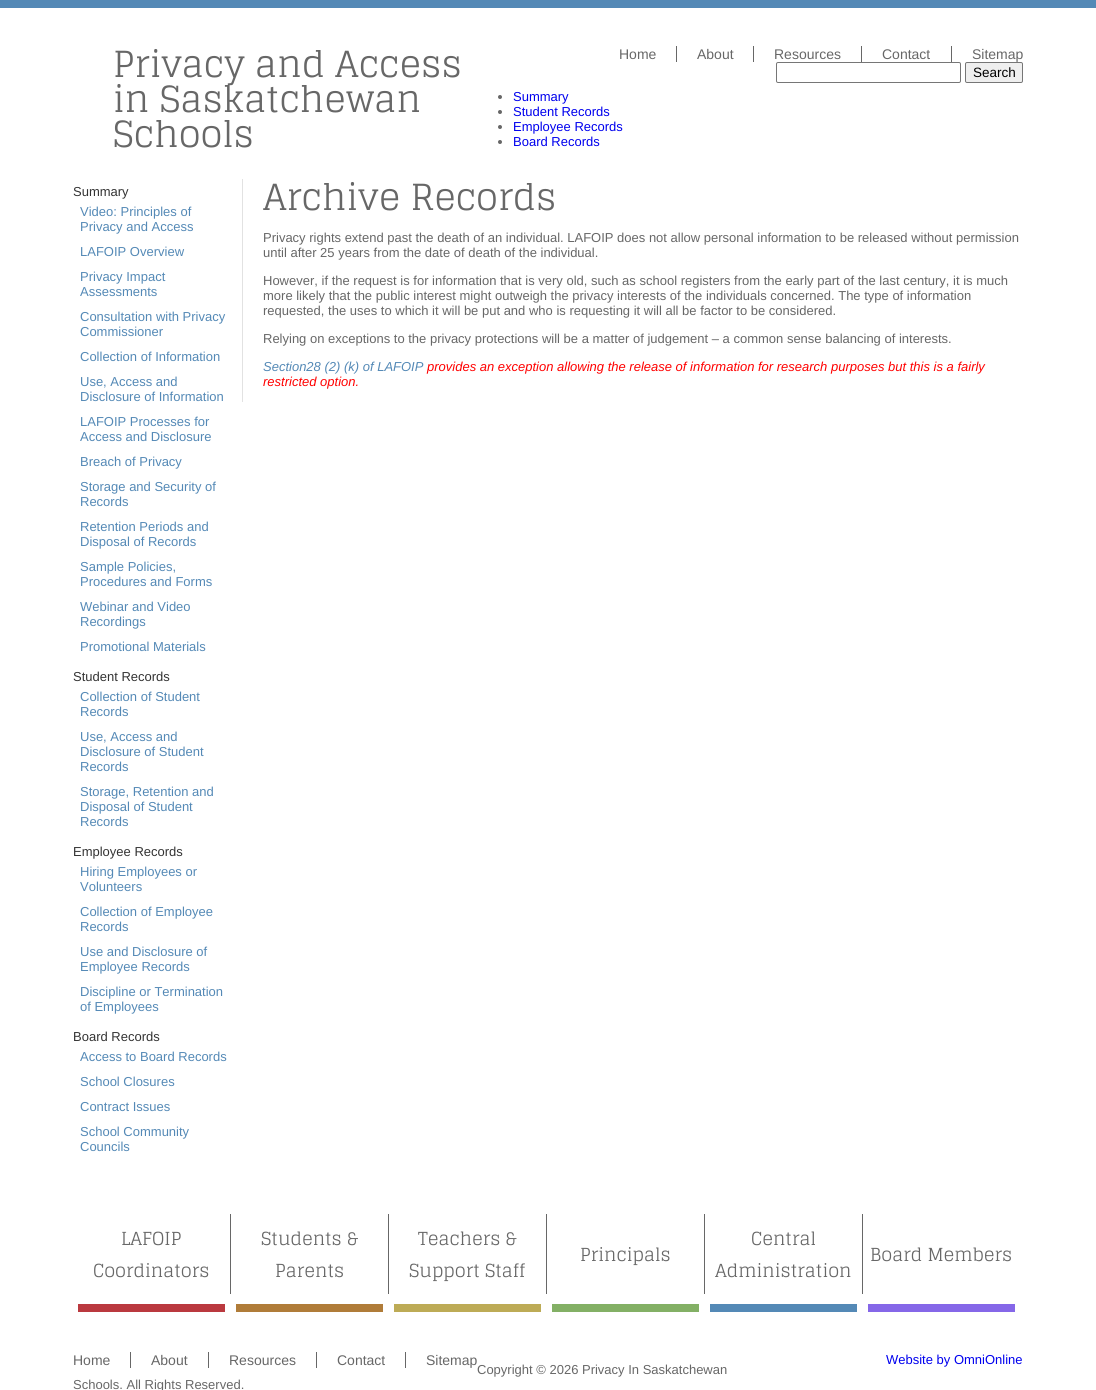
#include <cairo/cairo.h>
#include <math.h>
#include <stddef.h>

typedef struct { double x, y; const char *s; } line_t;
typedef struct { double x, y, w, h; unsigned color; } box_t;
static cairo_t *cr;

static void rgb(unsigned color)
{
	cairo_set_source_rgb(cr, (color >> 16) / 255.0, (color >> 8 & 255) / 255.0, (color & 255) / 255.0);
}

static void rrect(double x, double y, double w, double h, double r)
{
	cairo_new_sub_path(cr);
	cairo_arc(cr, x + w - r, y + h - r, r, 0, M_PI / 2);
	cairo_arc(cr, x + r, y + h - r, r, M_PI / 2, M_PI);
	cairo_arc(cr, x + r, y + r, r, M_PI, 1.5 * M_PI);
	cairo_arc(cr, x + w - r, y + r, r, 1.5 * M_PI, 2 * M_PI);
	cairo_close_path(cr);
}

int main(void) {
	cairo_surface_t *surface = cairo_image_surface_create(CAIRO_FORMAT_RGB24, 1096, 1390);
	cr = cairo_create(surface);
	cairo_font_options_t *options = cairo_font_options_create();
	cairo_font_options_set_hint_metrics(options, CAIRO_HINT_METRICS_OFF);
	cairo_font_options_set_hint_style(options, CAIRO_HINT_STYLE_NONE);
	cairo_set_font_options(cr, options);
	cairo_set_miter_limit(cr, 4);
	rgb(0xffffff);
	cairo_paint(cr);
	{
		static const box_t items[] = {
			{0, 0, 1096, 8, 0x5489b6},
			{676, 46, 1, 16, 0x676767},
			{753, 46, 1, 16, 0x676767},
			{861, 46, 1, 16, 0x676767},
			{951, 46, 1, 16, 0x676767},
		};
		for (size_t i = 0; i < sizeof items / sizeof *items; i++) {
			rgb(items[i].color);
			cairo_rectangle(cr, items[i].x, items[i].y, items[i].w, items[i].h);
			cairo_fill(cr);
		}
	}
	rrect(776.5, 62.5, 184, 20, 1.5);
	rgb(0x767676);
	cairo_set_line_width(cr, 1);
	cairo_stroke(cr);
	rgb(0xefefef);
	rrect(965.5, 62.5, 57, 20, 1.5);
	cairo_fill_preserve(cr);
	rgb(0x767676);
	cairo_stroke(cr);
	rgb(0x676767);
	cairo_arc(cr, 500, 97, 2, 0, 2 * M_PI);
	cairo_fill(cr);
	cairo_arc(cr, 500, 112, 2, 0, 2 * M_PI);
	cairo_fill(cr);
	cairo_arc(cr, 500, 127, 2, 0, 2 * M_PI);
	cairo_fill(cr);
	cairo_arc(cr, 500, 142, 2, 0, 2 * M_PI);
	cairo_fill(cr);
	{
		static const box_t items[] = {
			{242, 179, 1, 223, 0xe2e2e2},
			{230, 1214, 1, 80, 0x676767},
			{388, 1214, 1, 80, 0x676767},
			{546, 1214, 1, 80, 0x676767},
			{704, 1214, 1, 80, 0x676767},
			{862, 1214, 1, 80, 0x676767},
			{78, 1304, 147, 8, 0xba393f},
			{236, 1304, 147, 8, 0xb07c39},
			{394, 1304, 147, 8, 0xbdab56},
			{552, 1304, 147, 8, 0x83b065},
			{710, 1304, 147, 8, 0x5489b6},
			{868, 1304, 147, 8, 0x8567e8},
			{130, 1352, 1, 16, 0x676767},
			{208, 1352, 1, 16, 0x676767},
			{316, 1352, 1, 16, 0x676767},
			{405, 1352, 1, 16, 0x676767},
		};
		for (size_t i = 0; i < sizeof items / sizeof *items; i++) {
			rgb(items[i].color);
			cairo_rectangle(cr, items[i].x, items[i].y, items[i].w, items[i].h);
			cairo_fill(cr);
		}
	}
	cairo_select_font_face(cr, "Glegoo", CAIRO_FONT_SLANT_NORMAL, CAIRO_FONT_WEIGHT_NORMAL);
	cairo_set_font_size(cr, 36);
	{
		static const line_t items[] = {
			{113, 77, "Privacy and Access"},
			{113, 112, "in Saskatchewan"},
			{113, 147, "Schools"},
		};
		for (size_t i = 0; i < sizeof items / sizeof *items; i++) {
			cairo_move_to(cr, items[i].x, items[i].y);
			cairo_show_text(cr, items[i].s);
		}
	}
	cairo_select_font_face(cr, "Liberation Sans", CAIRO_FONT_SLANT_NORMAL, CAIRO_FONT_WEIGHT_NORMAL);
	cairo_set_font_size(cr, 14);
	{
		static const line_t items[] = {
			{619, 59, "Home"},
			{697, 59, "About"},
			{774, 59, "Resources"},
			{882, 59, "Contact"},
			{972, 59, "Sitemap"},
		};
		for (size_t i = 0; i < sizeof items / sizeof *items; i++) {
			cairo_move_to(cr, items[i].x, items[i].y);
			cairo_show_text(cr, items[i].s);
		}
	}
	cairo_set_font_size(cr, 13.5);
	rgb(0x000000);
	cairo_move_to(cr, 973, 77);
	cairo_show_text(cr, "Search");
	cairo_set_font_size(cr, 13);
	rgb(0x0000ee);
	{
		static const line_t items[] = {
			{513, 101, "Summary"},
			{513, 116, "Student Records"},
			{513, 131, "Employee Records"},
			{513, 146, "Board Records"},
		};
		for (size_t i = 0; i < sizeof items / sizeof *items; i++) {
			cairo_move_to(cr, items[i].x, items[i].y);
			cairo_show_text(cr, items[i].s);
		}
	}
	rgb(0x333333);
	cairo_move_to(cr, 73, 196);
	cairo_show_text(cr, "Summary");
	rgb(0x5489b6);
	{
		static const line_t items[] = {
			{80, 216, "Video: Principles of"},
			{80, 231, "Privacy and Access"},
			{80, 256, "LAFOIP Overview"},
			{80, 281, "Privacy Impact"},
			{80, 296, "Assessments"},
			{80, 321, "Consultation with Privacy"},
			{80, 336, "Commissioner"},
			{80, 361, "Collection of Information"},
			{80, 386, "Use, Access and"},
			{80, 401, "Disclosure of Information"},
			{80, 426, "LAFOIP Processes for"},
			{80, 441, "Access and Disclosure"},
			{80, 466, "Breach of Privacy"},
			{80, 491, "Storage and Security of"},
			{80, 506, "Records"},
			{80, 531, "Retention Periods and"},
			{80, 546, "Disposal of Records"},
			{80, 571, "Sample Policies,"},
			{80, 586, "Procedures and Forms"},
			{80, 611, "Webinar and Video"},
			{80, 626, "Recordings"},
			{80, 651, "Promotional Materials"},
		};
		for (size_t i = 0; i < sizeof items / sizeof *items; i++) {
			cairo_move_to(cr, items[i].x, items[i].y);
			cairo_show_text(cr, items[i].s);
		}
	}
	rgb(0x333333);
	cairo_move_to(cr, 73, 681);
	cairo_show_text(cr, "Student Records");
	rgb(0x5489b6);
	{
		static const line_t items[] = {
			{80, 701, "Collection of Student"},
			{80, 716, "Records"},
			{80, 741, "Use, Access and"},
			{80, 756, "Disclosure of Student"},
			{80, 771, "Records"},
			{80, 796, "Storage, Retention and"},
			{80, 811, "Disposal of Student"},
			{80, 826, "Records"},
		};
		for (size_t i = 0; i < sizeof items / sizeof *items; i++) {
			cairo_move_to(cr, items[i].x, items[i].y);
			cairo_show_text(cr, items[i].s);
		}
	}
	rgb(0x333333);
	cairo_move_to(cr, 73, 856);
	cairo_show_text(cr, "Employee Records");
	rgb(0x5489b6);
	{
		static const line_t items[] = {
			{80, 876, "Hiring Employees or"},
			{80, 891, "Volunteers"},
			{80, 916, "Collection of Employee"},
			{80, 931, "Records"},
			{80, 956, "Use and Disclosure of"},
			{80, 971, "Employee Records"},
			{80, 996, "Discipline or Termination"},
			{80, 1011, "of Employees"},
		};
		for (size_t i = 0; i < sizeof items / sizeof *items; i++) {
			cairo_move_to(cr, items[i].x, items[i].y);
			cairo_show_text(cr, items[i].s);
		}
	}
	rgb(0x333333);
	cairo_move_to(cr, 73, 1041);
	cairo_show_text(cr, "Board Records");
	rgb(0x5489b6);
	{
		static const line_t items[] = {
			{80, 1061, "Access to Board Records"},
			{80, 1086, "School Closures"},
			{80, 1111, "Contract Issues"},
			{80, 1136, "School Community"},
			{80, 1151, "Councils"},
		};
		for (size_t i = 0; i < sizeof items / sizeof *items; i++) {
			cairo_move_to(cr, items[i].x, items[i].y);
			cairo_show_text(cr, items[i].s);
		}
	}
	cairo_select_font_face(cr, "Glegoo", CAIRO_FONT_SLANT_NORMAL, CAIRO_FONT_WEIGHT_NORMAL);
	cairo_set_font_size(cr, 36);
	rgb(0x676767);
	cairo_move_to(cr, 263, 210);
	cairo_show_text(cr, "Archive Records");
	cairo_select_font_face(cr, "Liberation Sans", CAIRO_FONT_SLANT_NORMAL, CAIRO_FONT_WEIGHT_NORMAL);
	cairo_set_font_size(cr, 13);
	{
		static const line_t items[] = {
			{263, 242, "Privacy rights extend past the death of an individual. LAFOIP does not allow personal information to be released without permission"},
			{263, 257, "until after 25 years from the date of death of the individual."},
			{263, 285, "However, if the request is for information that is very old, such as school registers from the early part of the last century, it is much"},
			{263, 300, "more likely that the public interest might outweigh the privacy interests of the individuals concerned. The type of information"},
			{263, 315, "requested, the uses to which it will be put and who is requesting it will all be factor to be considered."},
			{263, 343, "Relying on exceptions to the privacy protections will be a matter of judgement – a common sense balancing of interests."},
		};
		for (size_t i = 0; i < sizeof items / sizeof *items; i++) {
			cairo_move_to(cr, items[i].x, items[i].y);
			cairo_show_text(cr, items[i].s);
		}
	}
	cairo_select_font_face(cr, "Liberation Sans", CAIRO_FONT_SLANT_ITALIC, CAIRO_FONT_WEIGHT_NORMAL);
	rgb(0x5489b6);
	cairo_move_to(cr, 263, 371);
	cairo_show_text(cr, "Section28 (2) (k) of LAFOIP");
	rgb(0xff0000);
	cairo_move_to(cr, 427, 371);
	cairo_show_text(cr, "provides an exception allowing the release of information for research purposes but this is a fairly");
	cairo_move_to(cr, 263, 386);
	cairo_show_text(cr, "restricted option.");
	cairo_select_font_face(cr, "Glegoo", CAIRO_FONT_SLANT_NORMAL, CAIRO_FONT_WEIGHT_NORMAL);
	cairo_set_font_size(cr, 18);
	rgb(0x676767);
	{
		static const line_t items[] = {
			{121, 1245, "LAFOIP"},
			{93, 1277, "Coordinators"},
			{261, 1245, "Students &"},
			{275, 1277, "Parents"},
			{418, 1245, "Teachers &"},
			{409, 1277, "Support Staff"},
			{580, 1261, "Principals"},
			{751, 1245, "Central"},
			{715, 1277, "Administration"},
			{870, 1261, "Board Members"},
		};
		for (size_t i = 0; i < sizeof items / sizeof *items; i++) {
			cairo_move_to(cr, items[i].x, items[i].y);
			cairo_show_text(cr, items[i].s);
		}
	}
	cairo_select_font_face(cr, "Liberation Sans", CAIRO_FONT_SLANT_NORMAL, CAIRO_FONT_WEIGHT_NORMAL);
	cairo_set_font_size(cr, 14);
	{
		static const line_t items[] = {
			{73, 1365, "Home"},
			{151, 1365, "About"},
			{229, 1365, "Resources"},
			{337, 1365, "Contact"},
			{426, 1365, "Sitemap"},
		};
		for (size_t i = 0; i < sizeof items / sizeof *items; i++) {
			cairo_move_to(cr, items[i].x, items[i].y);
			cairo_show_text(cr, items[i].s);
		}
	}
	cairo_set_font_size(cr, 13);
	cairo_move_to(cr, 477, 1374);
	cairo_show_text(cr, "Copyright © 2026 Privacy In Saskatchewan");
	cairo_move_to(cr, 73, 1389);
	cairo_show_text(cr, "Schools. All Rights Reserved.");
	rgb(0x0000ee);
	cairo_move_to(cr, 886, 1364);
	cairo_show_text(cr, "Website by OmniOnline");
	cairo_surface_write_to_png(surface, "page.png");
	cairo_font_options_destroy(options);
	cairo_destroy(cr);
	cairo_surface_destroy(surface);
	return 0;
}
